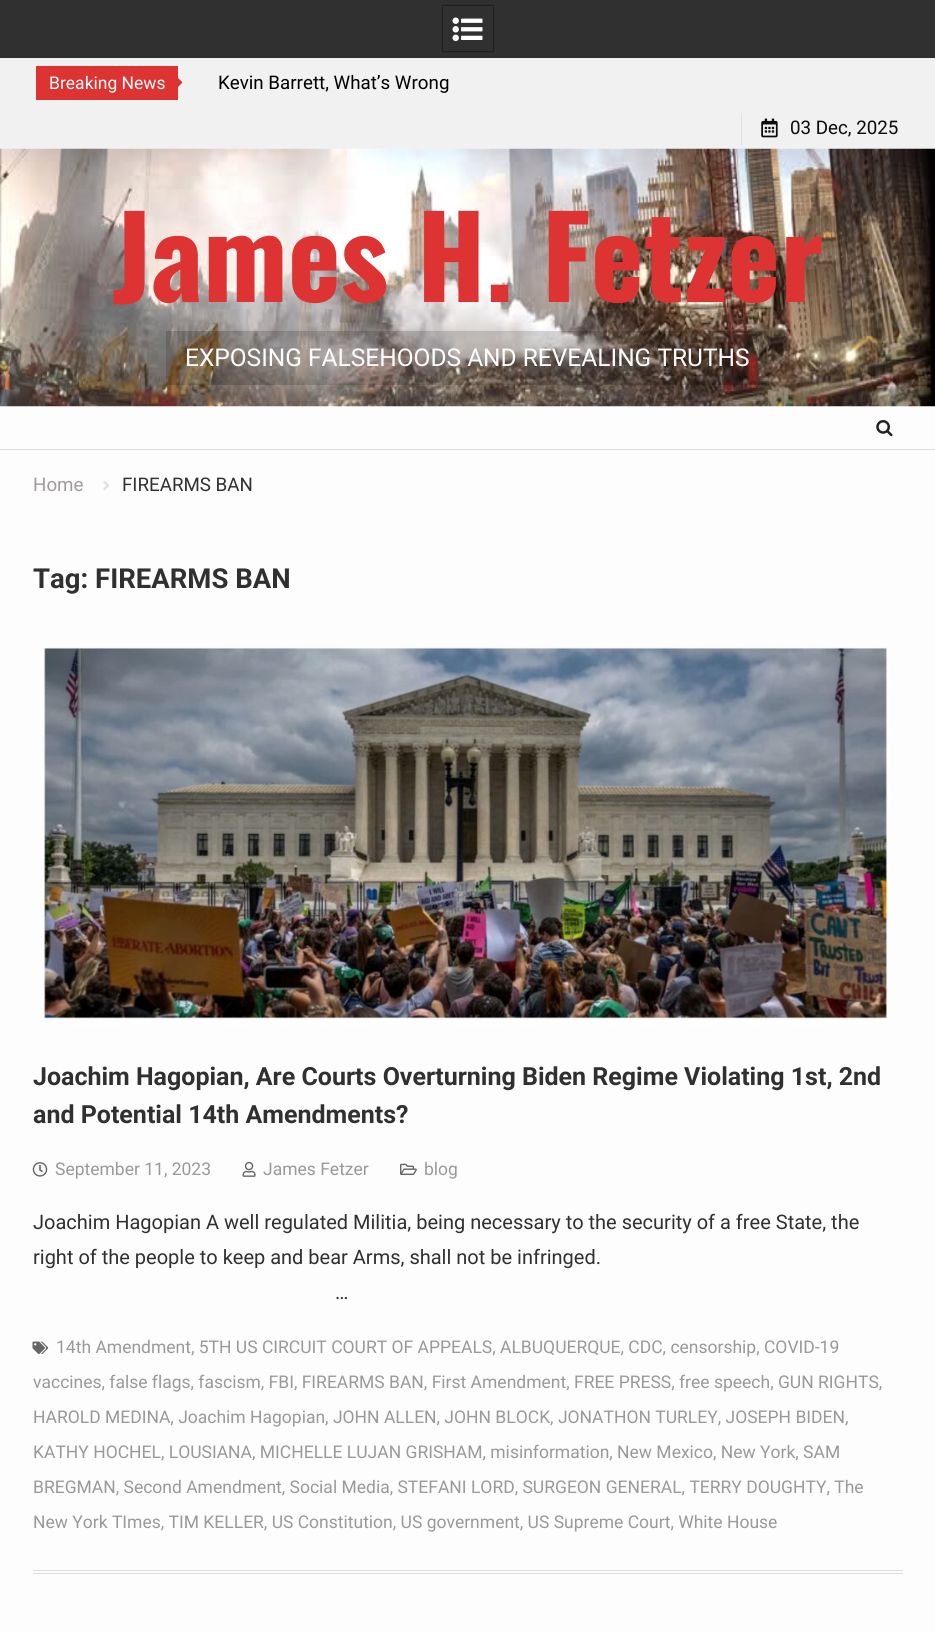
#include <cairo/cairo.h>
#include <math.h>
#include <stddef.h>

typedef struct { double x, y; const char *s; } line_t;
static cairo_t *cr;

static void rgb(unsigned color)
{
	cairo_set_source_rgb(cr, (color >> 16) / 255.0, (color >> 8 & 255) / 255.0, (color & 255) / 255.0);
}

static void rrect(double x, double y, double w, double h, double r)
{
	cairo_new_sub_path(cr);
	cairo_arc(cr, x + w - r, y + h - r, r, 0, M_PI / 2);
	cairo_arc(cr, x + r, y + h - r, r, M_PI / 2, M_PI);
	cairo_arc(cr, x + r, y + r, r, M_PI, 1.5 * M_PI);
	cairo_arc(cr, x + w - r, y + r, r, 1.5 * M_PI, 2 * M_PI);
	cairo_close_path(cr);
}

static void soft_shadow(double x, double y, double w, double h, double r, double blur, double alpha)
{
	cairo_push_group_with_content(cr, CAIRO_CONTENT_ALPHA);
	cairo_set_operator(cr, CAIRO_OPERATOR_SOURCE);
	for (int i = 15; i >= -15 && fmin(w, h) + blur * i / 3 > 0; i -= 2) {
		double e = blur * i / 6;
		cairo_set_source_rgba(cr, 0, 0, 0, alpha * erfc((i - 1) / 8.5) / 2);
		rrect(x - e, y - e, w + 2 * e, h + 2 * e, fmax(0, fmin(r + e + blur * .6, fmin(w, h) / 2 + e)));
		cairo_fill(cr);
	}
	cairo_pattern_t *soft = cairo_pop_group(cr);
	cairo_mask(cr, soft);
	cairo_pattern_destroy(soft);
}

static void image(const char *path, double x, double y, double w, double h)
{
	cairo_surface_t *image = cairo_image_surface_create_from_png(path);
	cairo_save(cr);
	cairo_set_source_surface(cr, image, x, y);
	cairo_rectangle(cr, x, y, w, h);
	cairo_fill(cr);
	cairo_restore(cr);
	cairo_surface_destroy(image);
}

int main(void) {
	cairo_surface_t *surface = cairo_image_surface_create(CAIRO_FORMAT_RGB24, 935, 1632);
	cr = cairo_create(surface);
	cairo_font_options_t *options = cairo_font_options_create();
	cairo_font_options_set_hint_metrics(options, CAIRO_HINT_METRICS_OFF);
	cairo_font_options_set_hint_style(options, CAIRO_HINT_STYLE_NONE);
	cairo_set_font_options(cr, options);
	cairo_set_miter_limit(cr, 4);
	rgb(0xfdfdfd);
	cairo_paint(cr);
	rgb(0xf1f1f1);
	cairo_rectangle(cr, 0, 58, 935, 91);
	cairo_fill(cr);
	rgb(0xdd3333);
	cairo_rectangle(cr, 36, 66, 142, 34);
	cairo_fill(cr);
	cairo_new_path(cr);
	cairo_move_to(cr, 170, 95);
	cairo_line_to(cr, 170, 70);
	cairo_line_to(cr, 182.5, 82.5);
	cairo_close_path(cr);
	cairo_fill(cr);
	rgb(0xe0e0e0);
	cairo_rectangle(cr, 741, 113, 1, 32);
	cairo_fill(cr);
	image("img/1.png", 761, 118, 17, 20);
	rgb(0x303030);
	cairo_rectangle(cr, 0, 0, 935, 58);
	cairo_fill(cr);
	cairo_save(cr);
	cairo_set_fill_rule(cr, CAIRO_FILL_RULE_EVEN_ODD);
	cairo_new_path(cr);
	cairo_move_to(cr, 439, 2);
	cairo_line_to(cr, 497, 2);
	cairo_line_to(cr, 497, 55);
	cairo_line_to(cr, 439, 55);
	cairo_close_path(cr);
	cairo_move_to(cr, 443, 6);
	cairo_line_to(cr, 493, 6);
	cairo_line_to(cr, 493, 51);
	cairo_line_to(cr, 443, 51);
	cairo_close_path(cr);
	cairo_clip(cr);
	rgb(0x000000);
	soft_shadow(443, 6, 50, 45, 0, 1, 1);
	cairo_restore(cr);
	image("img/2.png", 452, 17, 31, 25);
	image("img/3.png", 0, 148, 935, 259);
	rgb(0xdddddd);
	cairo_rectangle(cr, 0, 449, 935, 1);
	cairo_fill(cr);
	image("img/4.png", 876, 420, 17, 17);
	image("img/5.png", 103, 481, 7, 10);
	cairo_rectangle(cr, 33, 1570, 870, 1);
	cairo_fill(cr);
	cairo_rectangle(cr, 33, 1573, 870, 1);
	cairo_fill(cr);
	image("img/6.png", 40, 647, 849, 378);
	image("img/7.png", 32, 1162, 16, 15);
	image("img/8.png", 242, 1161, 14, 16);
	image("img/9.png", 400, 1163, 17, 12);
	image("img/10.png", 32, 1341, 17, 13);
	cairo_select_font_face(cr, "Roboto", CAIRO_FONT_SLANT_NORMAL, CAIRO_FONT_WEIGHT_NORMAL);
	cairo_set_font_size(cr, 17.5);
	rgb(0xfdfdfd);
	cairo_move_to(cr, 49, 89);
	cairo_show_text(cr, "Breaking News");
	cairo_set_font_size(cr, 18.75);
	rgb(0x000000);
	cairo_move_to(cr, 218, 89);
	cairo_show_text(cr, "Kevin Barrett, What’s Wrong");
	rgb(0x0a0a0a);
	cairo_move_to(cr, 790, 134);
	cairo_show_text(cr, "03 Dec, 2025");
	cairo_select_font_face(cr, "Oswald", CAIRO_FONT_SLANT_NORMAL, CAIRO_FONT_WEIGHT_BOLD);
	cairo_set_font_size(cr, 112.5);
	rgb(0xdd3333);
	cairo_move_to(cr, 112, 302);
	cairo_show_text(cr, "James H. Fetzer");
	cairo_select_font_face(cr, "Roboto", CAIRO_FONT_SLANT_NORMAL, CAIRO_FONT_WEIGHT_NORMAL);
	cairo_set_font_size(cr, 24.5);
	rgb(0xfdfdfd);
	cairo_move_to(cr, 185, 366);
	cairo_show_text(cr, "EXPOSING FALSEHOODS AND REVEALING TRUTHS");
	cairo_set_font_size(cr, 18.75);
	rgb(0xa29a9a);
	cairo_move_to(cr, 33, 491);
	cairo_show_text(cr, "Home");
	rgb(0x303030);
	cairo_move_to(cr, 122, 491);
	cairo_show_text(cr, "FIREARMS BAN");
	cairo_select_font_face(cr, "Roboto", CAIRO_FONT_SLANT_NORMAL, CAIRO_FONT_WEIGHT_BOLD);
	cairo_set_font_size(cr, 27.5);
	cairo_move_to(cr, 33, 588);
	cairo_show_text(cr, "Tag: FIREARMS BAN");
	cairo_set_font_size(cr, 25);
	cairo_move_to(cr, 33, 1085);
	cairo_show_text(cr, "Joachim Hagopian, Are Courts Overturning Biden Regime Violating 1st, 2nd");
	cairo_move_to(cr, 33, 1123);
	cairo_show_text(cr, "and Potential 14th Amendments?");
	cairo_select_font_face(cr, "Roboto", CAIRO_FONT_SLANT_NORMAL, CAIRO_FONT_WEIGHT_NORMAL);
	cairo_set_font_size(cr, 17.5);
	rgb(0x999999);
	{
		static const line_t items[] = {
			{55, 1175, "September 11, 2023"},
			{263, 1175, "James Fetzer"},
			{424, 1175, "blog"},
		};
		for (size_t i = 0; i < sizeof items / sizeof *items; i++) {
			cairo_move_to(cr, items[i].x, items[i].y);
			cairo_show_text(cr, items[i].s);
		}
	}
	cairo_set_font_size(cr, 20);
	rgb(0x303030);
	{
		static const line_t items[] = {
			{33, 1229, "Joachim Hagopian A well regulated Militia, being necessary to the security of a free State, the"},
			{33, 1264, "right of the people to keep and bear Arms, shall not be infringed."},
			{335, 1299, "…"},
		};
		for (size_t i = 0; i < sizeof items / sizeof *items; i++) {
			cairo_move_to(cr, items[i].x, items[i].y);
			cairo_show_text(cr, items[i].s);
		}
	}
	cairo_set_font_size(cr, 17.5);
	rgb(0x999999);
	{
		static const line_t items[] = {
			{56, 1353, "14th Amendment, 5TH US CIRCUIT COURT OF APPEALS, ALBUQUERQUE, CDC, censorship, COVID-19"},
			{33, 1388, "vaccines, false flags, fascism, FBI, FIREARMS BAN, First Amendment, FREE PRESS, free speech, GUN RIGHTS,"},
			{33, 1423, "HAROLD MEDINA, Joachim Hagopian, JOHN ALLEN, JOHN BLOCK, JONATHON TURLEY, JOSEPH BIDEN,"},
			{33, 1458, "KATHY HOCHEL, LOUSIANA, MICHELLE LUJAN GRISHAM, misinformation, New Mexico, New York, SAM"},
			{33, 1493, "BREGMAN, Second Amendment, Social Media, STEFANI LORD, SURGEON GENERAL, TERRY DOUGHTY, The"},
			{33, 1528, "New York TImes, TIM KELLER, US Constitution, US government, US Supreme Court, White House"},
		};
		for (size_t i = 0; i < sizeof items / sizeof *items; i++) {
			cairo_move_to(cr, items[i].x, items[i].y);
			cairo_show_text(cr, items[i].s);
		}
	}
	cairo_surface_write_to_png(surface, "page.png");
	cairo_font_options_destroy(options);
	cairo_destroy(cr);
	cairo_surface_destroy(surface);
	return 0;
}
